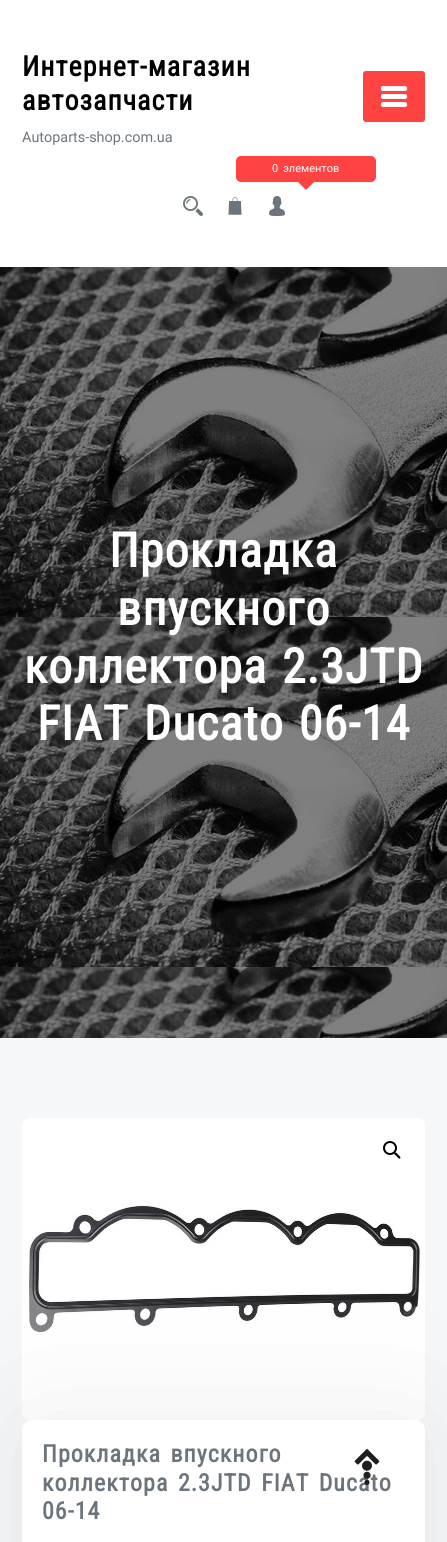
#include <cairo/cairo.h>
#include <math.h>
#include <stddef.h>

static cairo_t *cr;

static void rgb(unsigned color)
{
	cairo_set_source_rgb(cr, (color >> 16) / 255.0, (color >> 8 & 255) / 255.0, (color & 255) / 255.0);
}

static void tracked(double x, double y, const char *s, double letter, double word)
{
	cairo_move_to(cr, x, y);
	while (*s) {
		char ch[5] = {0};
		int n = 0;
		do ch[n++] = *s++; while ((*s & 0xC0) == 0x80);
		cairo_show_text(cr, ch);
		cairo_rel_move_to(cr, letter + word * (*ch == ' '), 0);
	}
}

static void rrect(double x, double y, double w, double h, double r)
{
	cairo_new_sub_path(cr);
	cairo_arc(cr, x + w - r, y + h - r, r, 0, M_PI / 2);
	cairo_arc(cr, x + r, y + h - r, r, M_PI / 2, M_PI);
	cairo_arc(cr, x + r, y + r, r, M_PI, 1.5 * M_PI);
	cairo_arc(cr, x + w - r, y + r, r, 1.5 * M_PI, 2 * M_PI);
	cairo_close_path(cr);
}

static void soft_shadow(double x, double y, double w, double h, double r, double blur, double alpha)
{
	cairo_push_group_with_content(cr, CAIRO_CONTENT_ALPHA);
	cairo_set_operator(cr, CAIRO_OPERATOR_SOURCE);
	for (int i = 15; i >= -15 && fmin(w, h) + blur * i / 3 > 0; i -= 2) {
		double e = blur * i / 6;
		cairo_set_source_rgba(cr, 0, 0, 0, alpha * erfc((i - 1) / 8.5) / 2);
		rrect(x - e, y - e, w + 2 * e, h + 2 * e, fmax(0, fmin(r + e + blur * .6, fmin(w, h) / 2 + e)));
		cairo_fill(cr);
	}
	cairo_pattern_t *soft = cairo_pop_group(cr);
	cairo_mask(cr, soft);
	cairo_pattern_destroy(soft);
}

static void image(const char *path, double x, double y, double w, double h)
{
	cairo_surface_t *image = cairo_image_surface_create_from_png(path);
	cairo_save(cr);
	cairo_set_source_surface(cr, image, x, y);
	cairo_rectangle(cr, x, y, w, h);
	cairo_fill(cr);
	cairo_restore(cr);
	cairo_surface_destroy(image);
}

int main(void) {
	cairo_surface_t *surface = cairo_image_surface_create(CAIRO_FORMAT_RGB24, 447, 1542);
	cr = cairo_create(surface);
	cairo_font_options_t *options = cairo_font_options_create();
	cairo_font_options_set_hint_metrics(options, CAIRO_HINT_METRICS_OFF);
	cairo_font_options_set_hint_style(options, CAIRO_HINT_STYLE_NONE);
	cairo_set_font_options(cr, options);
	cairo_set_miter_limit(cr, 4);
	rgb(0xf6f7f9);
	cairo_paint(cr);
	rgb(0xffffff);
	cairo_rectangle(cr, 0, 0, 447, 267);
	cairo_fill(cr);
	rgb(0xff4343);
	rrect(363.5, 71.5, 61, 50, 2.5);
	cairo_fill_preserve(cr);
	cairo_set_line_width(cr, 1);
	cairo_stroke(cr);
	image("img/1.png", 380, 86, 28, 21);
	rrect(236, 156, 140, 26, 5);
	cairo_fill(cr);
	cairo_new_path(cr);
	cairo_move_to(cr, 298, 182);
	cairo_line_to(cr, 314, 182);
	cairo_line_to(cr, 306, 190);
	cairo_close_path(cr);
	cairo_fill(cr);
	image("img/2.png", 228, 197, 14, 18);
	image("img/3.png", 183, 196, 20, 20);
	image("img/4.png", 269, 196, 16, 20);
	image("img/5.png", 0, 267, 447, 771);
	image("img/6.png", 22, 1118, 403, 302);
	cairo_arc(cr, 390, 1148, 6, 0, 2 * M_PI);
	rgb(0x000000);
	cairo_set_line_width(cr, 2);
	cairo_stroke(cr);
	cairo_new_path(cr);
	cairo_move_to(cr, 394.5, 1152.5);
	cairo_curve_to(cr, 395.5, 1151.5, 397.5, 1154, 398, 1154.5);
	cairo_curve_to(cr, 398.5, 1155.5, 401.5, 1157, 400, 1158.5);
	cairo_curve_to(cr, 399, 1159.5, 397, 1156.5, 396.5, 1156);
	cairo_curve_to(cr, 396, 1155.5, 393, 1154, 394.5, 1152.5);
	cairo_close_path(cr);
	cairo_fill(cr);
	rgb(0x4a4a4a);
	soft_shadow(22, 1420, 403, 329, 10, 65.5, 0.1);
	rgb(0xffffff);
	rrect(22, 1420, 403, 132, 10);
	cairo_fill(cr);
	cairo_select_font_face(cr, "Roboto Condensed", CAIRO_FONT_SLANT_NORMAL, CAIRO_FONT_WEIGHT_BOLD);
	cairo_set_font_size(cr, 28);
	rgb(0x000000);
	tracked(22, 76, "Интернет-магазин", 1, 0);
	tracked(22, 110, "автозапчасти", 1, 0);
	cairo_select_font_face(cr, "Roboto", CAIRO_FONT_SLANT_NORMAL, CAIRO_FONT_WEIGHT_NORMAL);
	cairo_set_font_size(cr, 14.4);
	rgb(0x6c757d);
	cairo_move_to(cr, 22, 142);
	cairo_show_text(cr, "Autoparts-shop.com.ua");
	cairo_set_font_size(cr, 11);
	rgb(0xffffff);
	tracked(272, 172, "0 элементов", 0, 2);
	cairo_select_font_face(cr, "Roboto Condensed", CAIRO_FONT_SLANT_NORMAL, CAIRO_FONT_WEIGHT_BOLD);
	cairo_set_font_size(cr, 48);
	tracked(109, 567, "Прокладка", 1, 0);
	tracked(117, 625, "впускного", 1, 0);
	tracked(24, 683, "коллектора 2.3JTD", 1, 3);
	tracked(37, 740, "FIAT Ducato 06-14", 1, 3);
	cairo_set_font_size(cr, 24);
	rgb(0x6c757d);
	tracked(42, 1462, "Прокладка впускного", 1, 3);
	tracked(42, 1491, "коллектора 2.3JTD FIAT Ducato", 1, 3);
	tracked(42, 1519, "06-14", 1, 0);
	image("img/7.png", 354, 1449, 26, 36);
	cairo_surface_write_to_png(surface, "page.png");
	cairo_font_options_destroy(options);
	cairo_destroy(cr);
	cairo_surface_destroy(surface);
	return 0;
}
